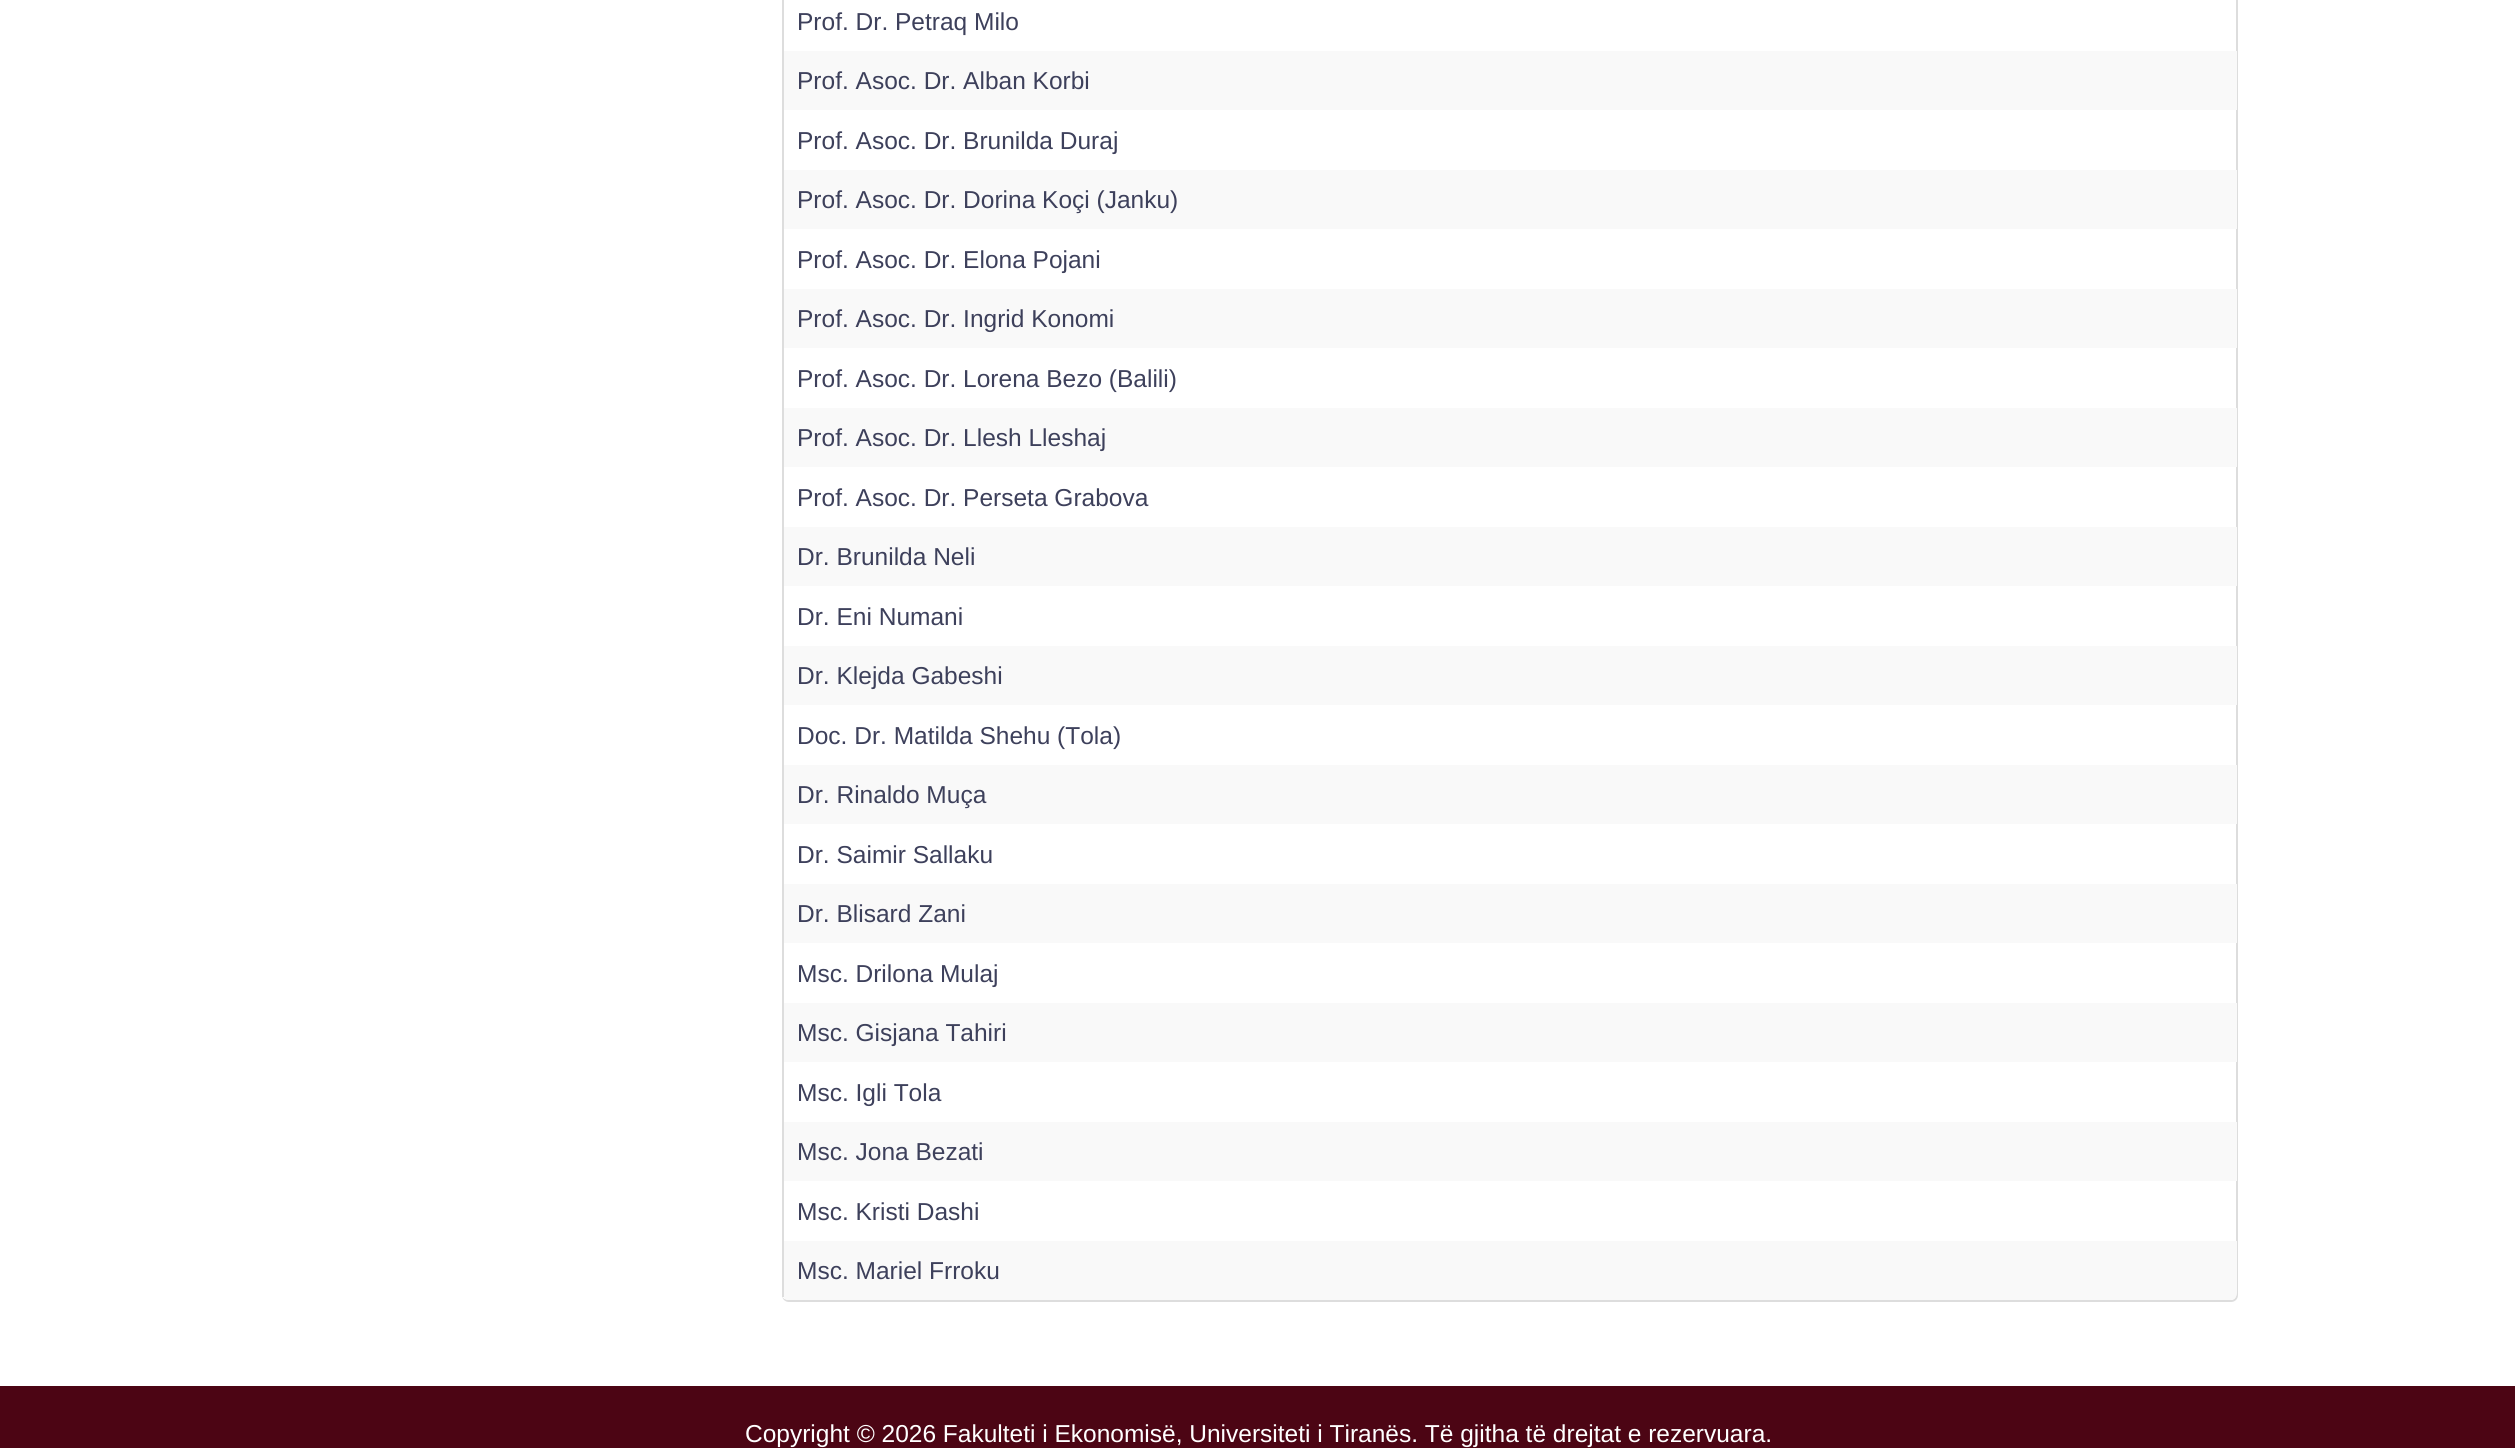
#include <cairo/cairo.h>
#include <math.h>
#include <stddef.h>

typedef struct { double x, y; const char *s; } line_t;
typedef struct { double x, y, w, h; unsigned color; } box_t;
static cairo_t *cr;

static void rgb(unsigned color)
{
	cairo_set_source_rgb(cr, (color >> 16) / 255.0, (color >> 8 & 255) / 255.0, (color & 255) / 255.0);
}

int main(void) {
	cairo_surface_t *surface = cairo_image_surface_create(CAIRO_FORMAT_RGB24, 2515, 1448);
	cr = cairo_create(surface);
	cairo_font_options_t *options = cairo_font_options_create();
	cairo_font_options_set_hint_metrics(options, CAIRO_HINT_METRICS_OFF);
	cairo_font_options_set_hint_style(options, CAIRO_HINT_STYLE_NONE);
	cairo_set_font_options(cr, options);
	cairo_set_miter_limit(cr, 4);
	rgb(0xffffff);
	cairo_paint(cr);
	rgb(0xdddddd);
	cairo_set_fill_rule(cr, CAIRO_FILL_RULE_EVEN_ODD);
	cairo_new_path(cr);
	cairo_move_to(cr, 789, -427);
	cairo_line_to(cr, 2231, -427);
	cairo_curve_to(cr, 2235, -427, 2238, -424, 2238, -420);
	cairo_line_to(cr, 2238, 1295);
	cairo_curve_to(cr, 2238, 1299, 2235, 1302, 2231, 1302);
	cairo_line_to(cr, 789, 1302);
	cairo_curve_to(cr, 785, 1302, 782, 1299, 782, 1295);
	cairo_line_to(cr, 782, -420);
	cairo_curve_to(cr, 782, -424, 785, -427, 789, -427);
	cairo_close_path(cr);
	cairo_move_to(cr, 789, -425);
	cairo_line_to(cr, 2231, -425);
	cairo_curve_to(cr, 2234, -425, 2236, -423, 2236, -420);
	cairo_line_to(cr, 2236, 1295);
	cairo_curve_to(cr, 2236, 1298, 2234, 1300, 2231, 1300);
	cairo_line_to(cr, 789, 1300);
	cairo_curve_to(cr, 785, 1300, 782, 1298, 782, 1295);
	cairo_line_to(cr, 782, -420);
	cairo_curve_to(cr, 782, -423, 785, -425, 789, -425);
	cairo_close_path(cr);
	cairo_fill(cr);
	{
		static const box_t items[] = {
			{782, 0, 2, 1241, 0xdddddd},
			{784, 51, 1453, 59, 0xf9f9f9},
			{784, 170, 1453, 59, 0xf9f9f9},
			{784, 289, 1453, 59, 0xf9f9f9},
			{784, 408, 1453, 59, 0xf9f9f9},
			{784, 527, 1453, 59, 0xf9f9f9},
			{784, 646, 1453, 59, 0xf9f9f9},
			{784, 765, 1453, 59, 0xf9f9f9},
			{784, 884, 1453, 59, 0xf9f9f9},
			{784, 1003, 1453, 59, 0xf9f9f9},
			{784, 1122, 1453, 59, 0xf9f9f9},
		};
		for (size_t i = 0; i < sizeof items / sizeof *items; i++) {
			rgb(items[i].color);
			cairo_rectangle(cr, items[i].x, items[i].y, items[i].w, items[i].h);
			cairo_fill(cr);
		}
	}
	cairo_new_path(cr);
	cairo_move_to(cr, 782, 1241);
	cairo_line_to(cr, 2237, 1241);
	cairo_line_to(cr, 2237, 1293);
	cairo_curve_to(cr, 2237, 1297, 2234, 1300, 2230, 1300);
	cairo_line_to(cr, 789, 1300);
	cairo_curve_to(cr, 785, 1300, 782, 1297, 782, 1293);
	cairo_close_path(cr);
	cairo_fill(cr);
	rgb(0xdddddd);
	cairo_rectangle(cr, 782, 1241, 2, 56);
	cairo_fill(cr);
	rgb(0x4c0514);
	cairo_rectangle(cr, 0, 1386, 2515, 62);
	cairo_fill(cr);
	cairo_select_font_face(cr, "Liberation Sans", CAIRO_FONT_SLANT_NORMAL, CAIRO_FONT_WEIGHT_NORMAL);
	cairo_set_font_size(cr, 24.5);
	rgb(0x3d405b);
	{
		static const line_t items[] = {
			{797, 30, "Prof. Dr. Petraq Milo"},
			{797, 89, "Prof. Asoc. Dr. Alban Korbi"},
			{797, 149, "Prof. Asoc. Dr. Brunilda Duraj"},
			{797, 208, "Prof. Asoc. Dr. Dorina Koçi (Janku)"},
			{797, 268, "Prof. Asoc. Dr. Elona Pojani"},
			{797, 327, "Prof. Asoc. Dr. Ingrid Konomi"},
			{797, 387, "Prof. Asoc. Dr. Lorena Bezo (Balili)"},
			{797, 446, "Prof. Asoc. Dr. Llesh Lleshaj"},
			{797, 506, "Prof. Asoc. Dr. Perseta Grabova"},
			{797, 565, "Dr. Brunilda Neli"},
			{797, 625, "Dr. Eni Numani"},
			{797, 684, "Dr. Klejda Gabeshi"},
			{797, 744, "Doc. Dr. Matilda Shehu (Tola)"},
			{797, 803, "Dr. Rinaldo Muça"},
			{797, 863, "Dr. Saimir Sallaku"},
			{797, 922, "Dr. Blisard Zani"},
			{797, 982, "Msc. Drilona Mulaj"},
			{797, 1041, "Msc. Gisjana Tahiri"},
			{797, 1101, "Msc. Igli Tola"},
			{797, 1160, "Msc. Jona Bezati"},
			{797, 1220, "Msc. Kristi Dashi"},
			{797, 1279, "Msc. Mariel Frroku"},
		};
		for (size_t i = 0; i < sizeof items / sizeof *items; i++) {
			cairo_move_to(cr, items[i].x, items[i].y);
			cairo_show_text(cr, items[i].s);
		}
	}
	rgb(0xffffff);
	cairo_move_to(cr, 745, 1442);
	cairo_show_text(cr, "Copyright © 2026 Fakulteti i Ekonomisë, Universiteti i Tiranës. Të gjitha të drejtat e rezervuara.");
	cairo_surface_write_to_png(surface, "page.png");
	cairo_font_options_destroy(options);
	cairo_destroy(cr);
	cairo_surface_destroy(surface);
	return 0;
}
